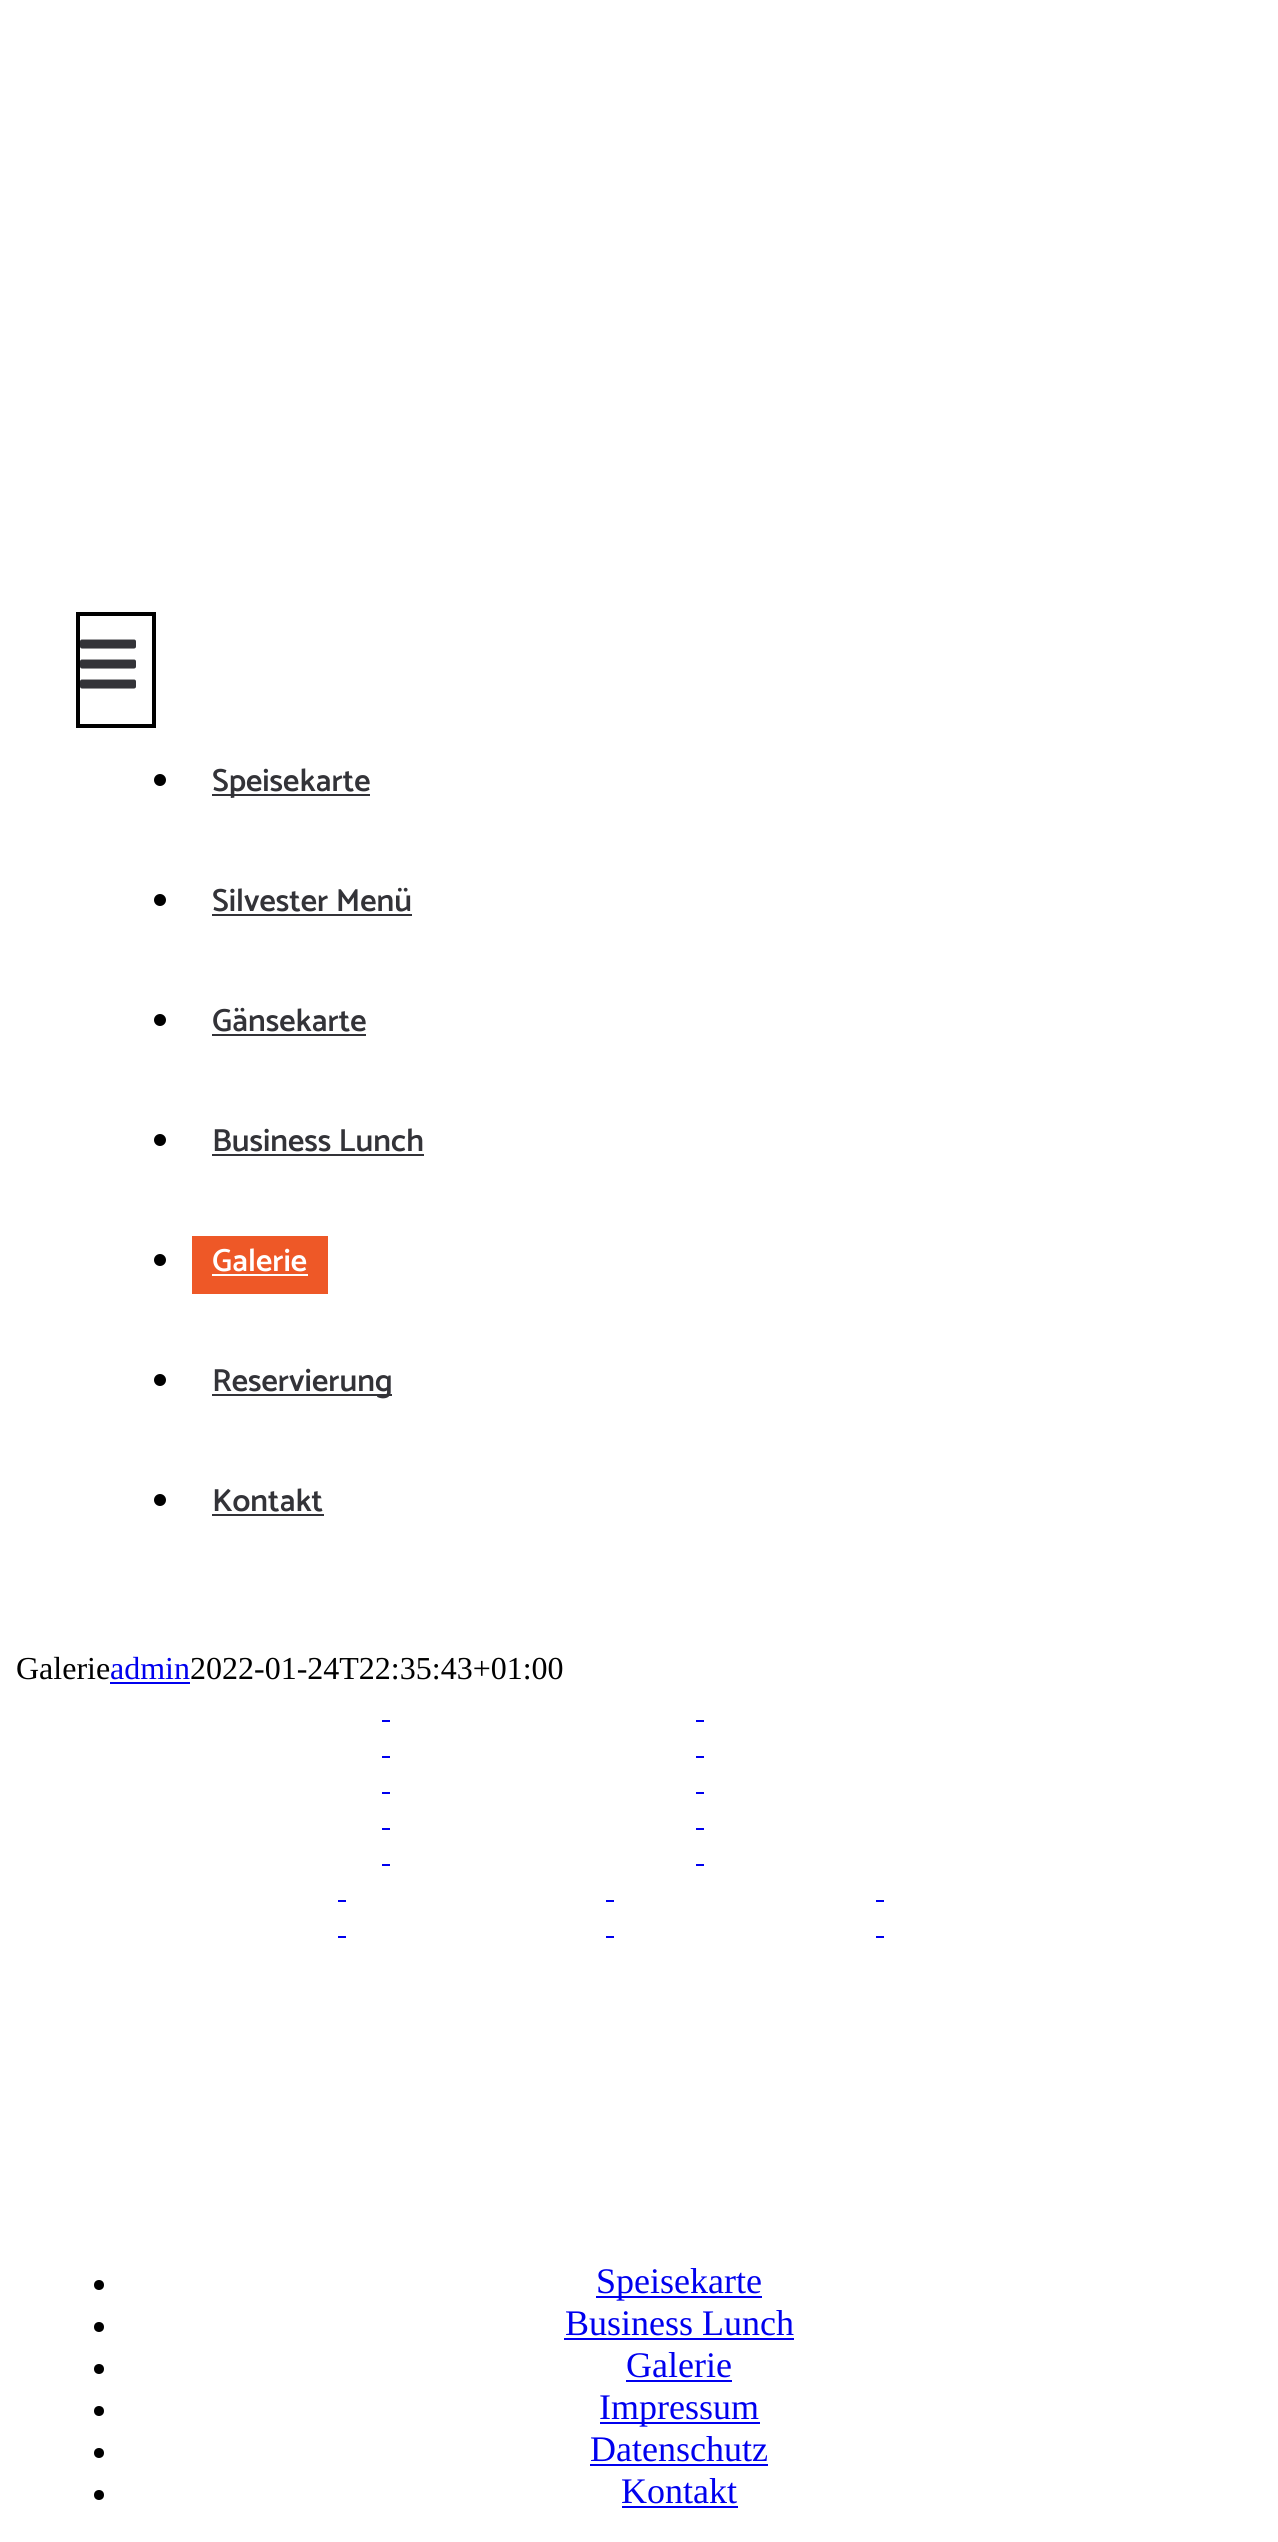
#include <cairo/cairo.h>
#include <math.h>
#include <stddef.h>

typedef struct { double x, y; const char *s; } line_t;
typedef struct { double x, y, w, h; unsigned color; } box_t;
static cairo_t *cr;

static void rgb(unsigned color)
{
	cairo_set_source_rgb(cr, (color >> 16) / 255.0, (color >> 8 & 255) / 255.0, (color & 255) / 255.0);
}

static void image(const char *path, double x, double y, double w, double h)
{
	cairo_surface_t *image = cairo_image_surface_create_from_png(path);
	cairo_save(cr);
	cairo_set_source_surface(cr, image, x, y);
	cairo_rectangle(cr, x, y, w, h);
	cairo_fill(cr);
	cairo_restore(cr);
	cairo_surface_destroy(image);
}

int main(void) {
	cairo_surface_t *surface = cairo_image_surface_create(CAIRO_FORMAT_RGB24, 1278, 2542);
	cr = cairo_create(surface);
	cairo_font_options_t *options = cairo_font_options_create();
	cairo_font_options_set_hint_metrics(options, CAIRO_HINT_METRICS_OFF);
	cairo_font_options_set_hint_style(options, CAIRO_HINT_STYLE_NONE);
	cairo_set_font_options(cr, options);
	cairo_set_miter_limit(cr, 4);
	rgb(0xffffff);
	cairo_paint(cr);
	cairo_rectangle(cr, 78, 614, 76, 112);
	rgb(0x000000);
	cairo_set_line_width(cr, 4);
	cairo_stroke(cr);
	image("img/1.png", 80, 639, 56, 50);
	cairo_arc(cr, 160, 780, 6, 0, 2 * M_PI);
	cairo_fill(cr);
	rgb(0x333338);
	cairo_rectangle(cr, 212, 794, 158, 2);
	cairo_fill(cr);
	rgb(0x000000);
	cairo_arc(cr, 160, 900, 6, 0, 2 * M_PI);
	cairo_fill(cr);
	rgb(0x333338);
	cairo_rectangle(cr, 212, 914, 200, 2);
	cairo_fill(cr);
	rgb(0x000000);
	cairo_arc(cr, 160, 1020, 6, 0, 2 * M_PI);
	cairo_fill(cr);
	rgb(0x333338);
	cairo_rectangle(cr, 212, 1034, 154, 2);
	cairo_fill(cr);
	rgb(0x000000);
	cairo_arc(cr, 160, 1140, 6, 0, 2 * M_PI);
	cairo_fill(cr);
	rgb(0x333338);
	cairo_rectangle(cr, 212, 1154, 212, 2);
	cairo_fill(cr);
	rgb(0x000000);
	cairo_arc(cr, 160, 1260, 6, 0, 2 * M_PI);
	cairo_fill(cr);
	rgb(0xee5827);
	cairo_rectangle(cr, 192, 1236, 136, 58);
	cairo_fill(cr);
	rgb(0xffffff);
	cairo_rectangle(cr, 212, 1274, 96, 2);
	cairo_fill(cr);
	rgb(0x000000);
	cairo_arc(cr, 160, 1380, 6, 0, 2 * M_PI);
	cairo_fill(cr);
	rgb(0x333338);
	cairo_rectangle(cr, 212, 1394, 180, 2);
	cairo_fill(cr);
	rgb(0x000000);
	cairo_arc(cr, 160, 1500, 6, 0, 2 * M_PI);
	cairo_fill(cr);
	{
		static const box_t items[] = {
			{212, 1514, 112, 2, 0x333338},
			{110, 1682, 80, 2, 0x0000ee},
			{382, 1720, 8, 2, 0x0000ee},
			{696, 1720, 8, 2, 0x0000ee},
			{382, 1756, 8, 2, 0x0000ee},
			{696, 1756, 8, 2, 0x0000ee},
			{382, 1792, 8, 2, 0x0000ee},
			{696, 1792, 8, 2, 0x0000ee},
			{382, 1828, 8, 2, 0x0000ee},
			{696, 1828, 8, 2, 0x0000ee},
			{382, 1864, 8, 2, 0x0000ee},
			{696, 1864, 8, 2, 0x0000ee},
			{338, 1900, 8, 2, 0x0000ee},
			{606, 1900, 8, 2, 0x0000ee},
			{876, 1900, 8, 2, 0x0000ee},
			{338, 1936, 8, 2, 0x0000ee},
			{606, 1936, 8, 2, 0x0000ee},
			{876, 1936, 8, 2, 0x0000ee},
		};
		for (size_t i = 0; i < sizeof items / sizeof *items; i++) {
			rgb(items[i].color);
			cairo_rectangle(cr, items[i].x, items[i].y, items[i].w, items[i].h);
			cairo_fill(cr);
		}
	}
	rgb(0x000000);
	cairo_arc(cr, 99, 2285, 5, 0, 2 * M_PI);
	cairo_fill(cr);
	rgb(0x0000ee);
	cairo_rectangle(cr, 596, 2296, 166, 2);
	cairo_fill(cr);
	rgb(0x000000);
	cairo_arc(cr, 99, 2327, 5, 0, 2 * M_PI);
	cairo_fill(cr);
	rgb(0x0000ee);
	cairo_rectangle(cr, 564, 2338, 230, 2);
	cairo_fill(cr);
	rgb(0x000000);
	cairo_arc(cr, 99, 2369, 5, 0, 2 * M_PI);
	cairo_fill(cr);
	rgb(0x0000ee);
	cairo_rectangle(cr, 626, 2380, 106, 2);
	cairo_fill(cr);
	rgb(0x000000);
	cairo_arc(cr, 99, 2411, 5, 0, 2 * M_PI);
	cairo_fill(cr);
	rgb(0x0000ee);
	cairo_rectangle(cr, 600, 2422, 160, 2);
	cairo_fill(cr);
	rgb(0x000000);
	cairo_arc(cr, 99, 2453, 5, 0, 2 * M_PI);
	cairo_fill(cr);
	rgb(0x0000ee);
	cairo_rectangle(cr, 590, 2464, 178, 2);
	cairo_fill(cr);
	rgb(0x000000);
	cairo_arc(cr, 99, 2495, 5, 0, 2 * M_PI);
	cairo_fill(cr);
	rgb(0x0000ee);
	cairo_rectangle(cr, 622, 2506, 116, 2);
	cairo_fill(cr);
	cairo_select_font_face(cr, "Catamaran SemiBold", CAIRO_FONT_SLANT_NORMAL, CAIRO_FONT_WEIGHT_NORMAL);
	cairo_set_font_size(cr, 32);
	rgb(0x333338);
	{
		static const line_t items[] = {
			{212, 791, "Speisekarte"},
			{212, 911, "Silvester Menü"},
			{212, 1031, "Gänsekarte"},
			{212, 1151, "Business Lunch"},
		};
		for (size_t i = 0; i < sizeof items / sizeof *items; i++) {
			cairo_move_to(cr, items[i].x, items[i].y);
			cairo_show_text(cr, items[i].s);
		}
	}
	rgb(0xffffff);
	cairo_move_to(cr, 212, 1271);
	cairo_show_text(cr, "Galerie");
	rgb(0x333338);
	cairo_move_to(cr, 212, 1391);
	cairo_show_text(cr, "Reservierung");
	cairo_move_to(cr, 212, 1511);
	cairo_show_text(cr, "Kontakt");
	cairo_select_font_face(cr, "Liberation Serif", CAIRO_FONT_SLANT_NORMAL, CAIRO_FONT_WEIGHT_NORMAL);
	rgb(0x000000);
	cairo_move_to(cr, 16, 1679);
	cairo_show_text(cr, "Galerie");
	rgb(0x0000ee);
	cairo_move_to(cr, 110, 1679);
	cairo_show_text(cr, "admin");
	rgb(0x000000);
	cairo_move_to(cr, 190, 1679);
	cairo_show_text(cr, "2022-01-24T22:35:43+01:00");
	cairo_set_font_size(cr, 36);
	rgb(0x0000ee);
	{
		static const line_t items[] = {
			{596, 2293, "Speisekarte"},
			{565, 2335, "Business Lunch"},
			{626, 2377, "Galerie"},
			{599, 2419, "Impressum"},
			{590, 2461, "Datenschutz"},
			{621, 2503, "Kontakt"},
		};
		for (size_t i = 0; i < sizeof items / sizeof *items; i++) {
			cairo_move_to(cr, items[i].x, items[i].y);
			cairo_show_text(cr, items[i].s);
		}
	}
	cairo_surface_write_to_png(surface, "page.png");
	cairo_font_options_destroy(options);
	cairo_destroy(cr);
	cairo_surface_destroy(surface);
	return 0;
}
